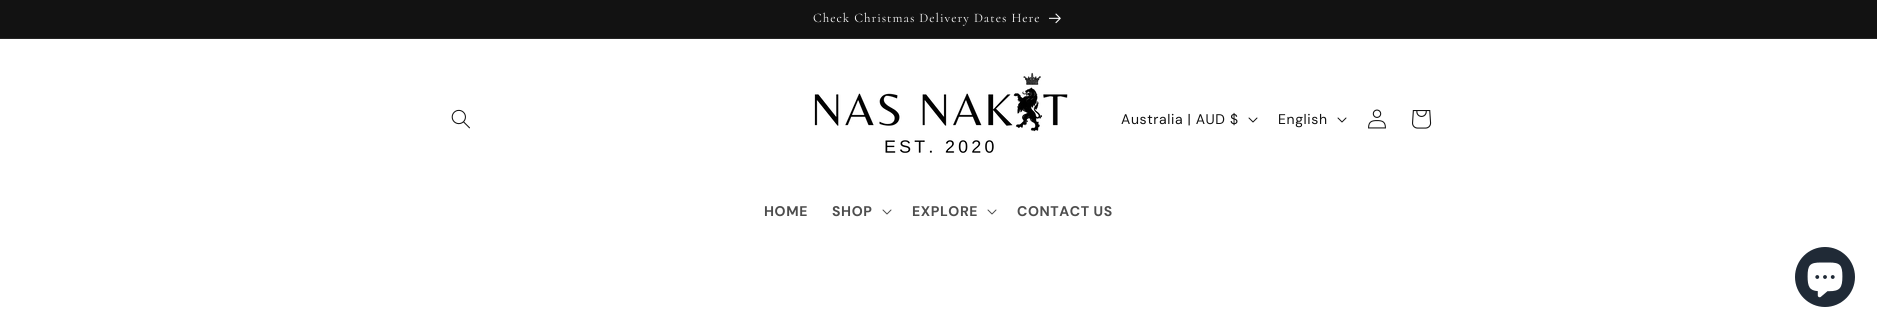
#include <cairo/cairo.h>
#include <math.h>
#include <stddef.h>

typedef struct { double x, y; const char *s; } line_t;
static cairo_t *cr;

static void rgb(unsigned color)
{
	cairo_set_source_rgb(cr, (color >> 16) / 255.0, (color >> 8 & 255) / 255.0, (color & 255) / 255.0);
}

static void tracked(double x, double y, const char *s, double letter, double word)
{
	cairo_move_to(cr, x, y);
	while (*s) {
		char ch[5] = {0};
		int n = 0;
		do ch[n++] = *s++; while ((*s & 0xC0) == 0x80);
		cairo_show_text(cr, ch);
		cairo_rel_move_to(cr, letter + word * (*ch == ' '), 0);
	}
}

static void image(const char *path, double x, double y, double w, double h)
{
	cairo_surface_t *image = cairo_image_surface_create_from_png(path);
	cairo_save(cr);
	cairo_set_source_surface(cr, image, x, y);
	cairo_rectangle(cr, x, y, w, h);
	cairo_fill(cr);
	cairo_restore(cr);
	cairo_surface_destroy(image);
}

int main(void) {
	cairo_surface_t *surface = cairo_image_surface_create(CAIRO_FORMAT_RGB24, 1877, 328);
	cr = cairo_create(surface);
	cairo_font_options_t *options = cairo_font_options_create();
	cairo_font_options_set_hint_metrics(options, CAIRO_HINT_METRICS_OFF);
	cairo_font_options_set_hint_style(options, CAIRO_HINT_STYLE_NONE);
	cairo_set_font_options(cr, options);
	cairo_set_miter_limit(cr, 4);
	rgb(0xffffff);
	cairo_paint(cr);
	rgb(0x121212);
	cairo_rectangle(cr, 0, 0, 1877, 38);
	cairo_fill(cr);
	rgb(0x252525);
	cairo_rectangle(cr, 0, 38, 1877, 1);
	cairo_fill(cr);
	image("img/1.png", 1049, 13, 12, 11);
	image("img/2.png", 451, 109, 19, 20);
	image("img/3.png", 814, 72, 254, 81);
	image("img/4.png", 1248, 117, 10, 6);
	image("img/4.png", 1337, 117, 10, 6);
	image("img/5.png", 1368, 109, 18, 20);
	image("img/6.png", 1412, 110, 20, 19);
	image("img/7.png", 882, 209, 10, 6);
	image("img/7.png", 987, 209, 10, 6);
	rgb(0x202a36);
	cairo_arc(cr, 1825, 277, 30, 0, 2 * M_PI);
	cairo_fill(cr);
	image("img/8.png", 1807, 262, 36, 36);
	cairo_select_font_face(cr, "Cormorant", CAIRO_FONT_SLANT_NORMAL, CAIRO_FONT_WEIGHT_NORMAL);
	cairo_set_font_size(cr, 13);
	rgb(0xffffff);
	tracked(813, 22, "Check Christmas Delivery Dates Here", 1, 0);
	cairo_select_font_face(cr, "DM Sans", CAIRO_FONT_SLANT_NORMAL, CAIRO_FONT_WEIGHT_NORMAL);
	cairo_set_font_size(cr, 14);
	rgb(0x121212);
	tracked(1121, 124, "Australia | AUD $", 0.6, 0);
	tracked(1278, 124, "English", 0.6, 0);
	cairo_select_font_face(cr, "DM Sans", CAIRO_FONT_SLANT_NORMAL, CAIRO_FONT_WEIGHT_BOLD);
	rgb(0x4d4d4d);
	{
		static const line_t items[] = {
			{764, 216, "HOME"},
			{832, 216, "SHOP"},
			{912, 216, "EXPLORE"},
			{1017, 216, "CONTACT US"},
		};
		for (size_t i = 0; i < sizeof items / sizeof *items; i++) {
			tracked(items[i].x, items[i].y, items[i].s, 0.6, 0);
		}
	}
	cairo_surface_write_to_png(surface, "page.png");
	cairo_font_options_destroy(options);
	cairo_destroy(cr);
	cairo_surface_destroy(surface);
	return 0;
}
